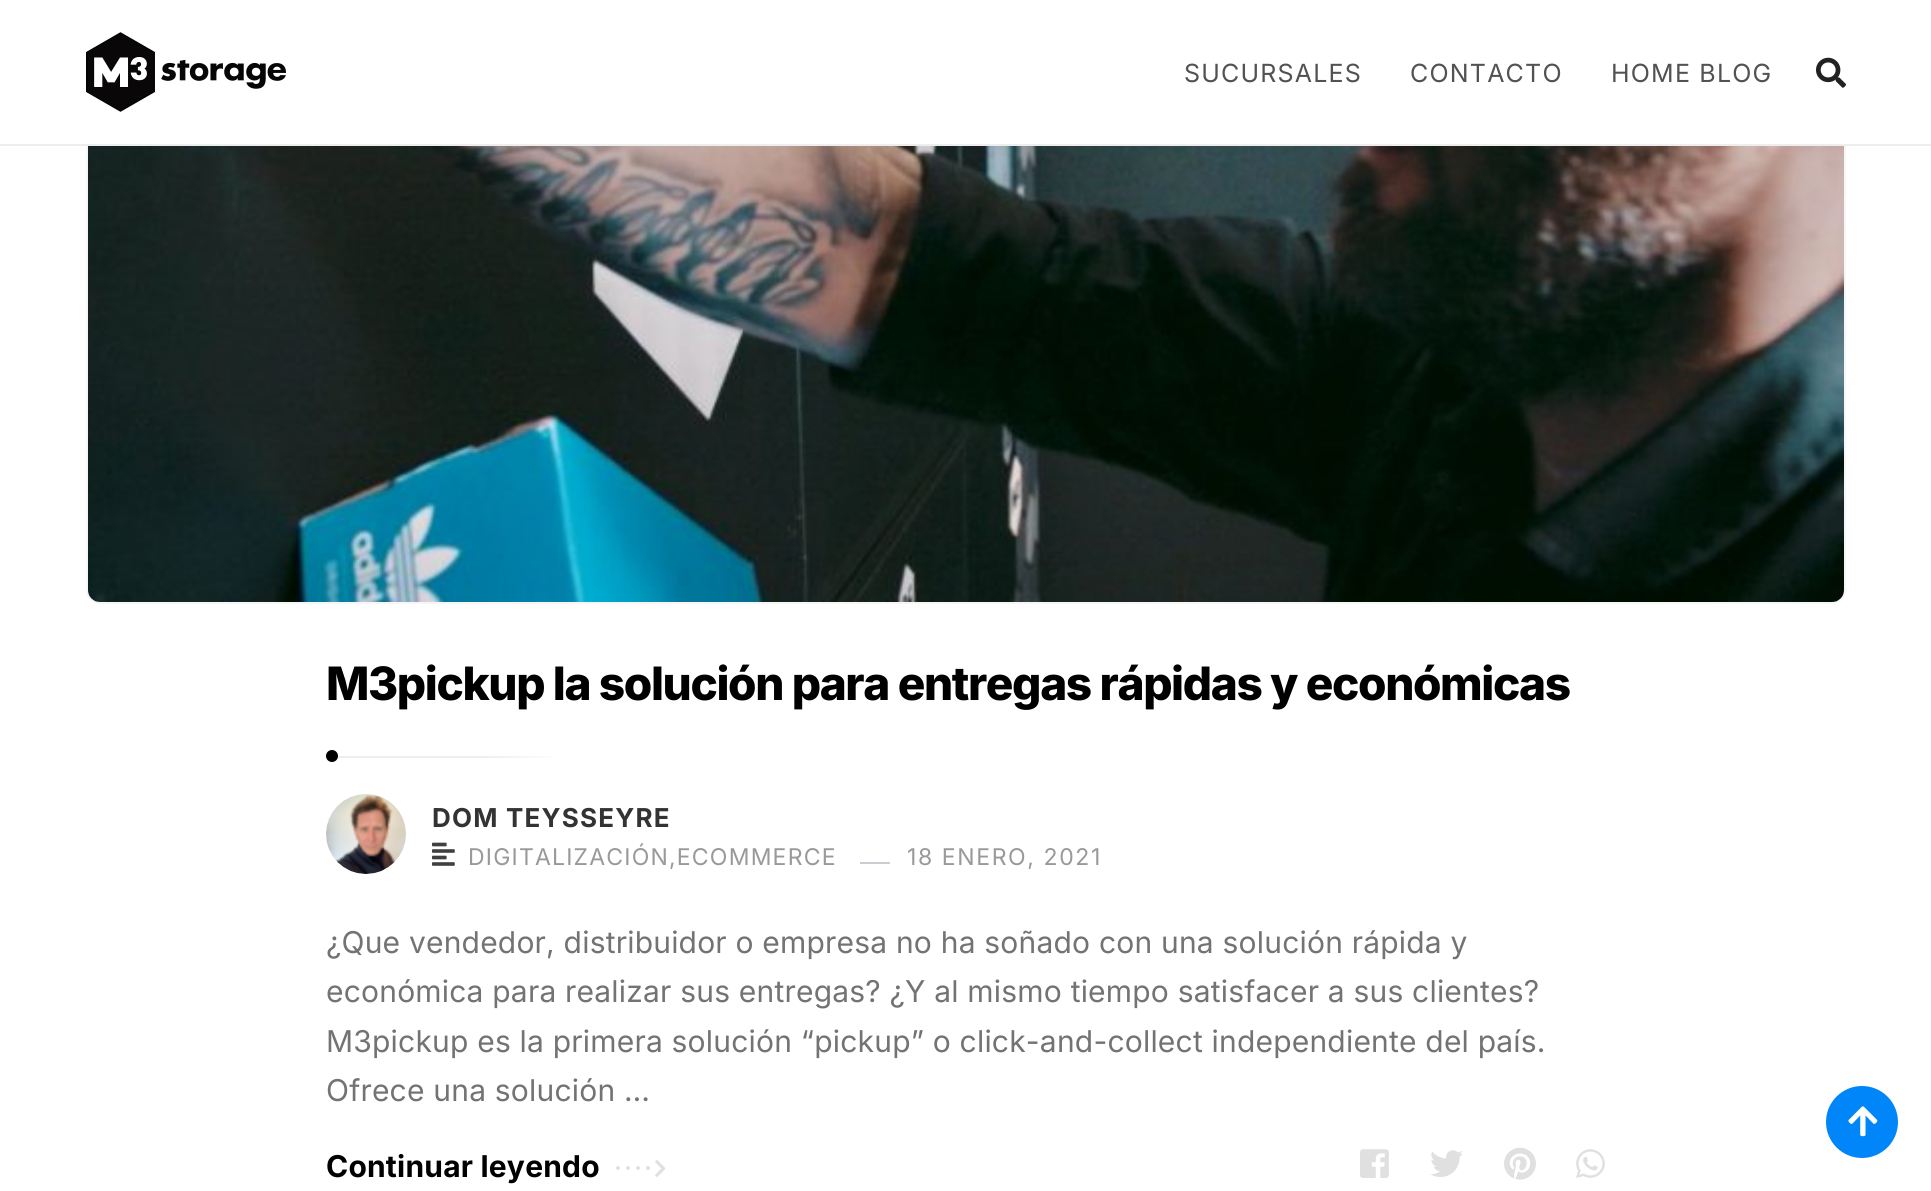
#include <cairo/cairo.h>
#include <math.h>
#include <stddef.h>

typedef struct { double x, y; const char *s; } line_t;
static cairo_t *cr;

static void rgb(unsigned color)
{
	cairo_set_source_rgb(cr, (color >> 16) / 255.0, (color >> 8 & 255) / 255.0, (color & 255) / 255.0);
}

static void tracked(double x, double y, const char *s, double letter, double word)
{
	cairo_move_to(cr, x, y);
	while (*s) {
		char ch[5] = {0};
		int n = 0;
		do ch[n++] = *s++; while ((*s & 0xC0) == 0x80);
		cairo_show_text(cr, ch);
		cairo_rel_move_to(cr, letter + word * (*ch == ' '), 0);
	}
}

static void rrect(double x, double y, double w, double h, double r)
{
	cairo_new_sub_path(cr);
	cairo_arc(cr, x + w - r, y + h - r, r, 0, M_PI / 2);
	cairo_arc(cr, x + r, y + h - r, r, M_PI / 2, M_PI);
	cairo_arc(cr, x + r, y + r, r, M_PI, 1.5 * M_PI);
	cairo_arc(cr, x + w - r, y + r, r, 1.5 * M_PI, 2 * M_PI);
	cairo_close_path(cr);
}

static void image(const char *path, double x, double y, double w, double h)
{
	cairo_surface_t *image = cairo_image_surface_create_from_png(path);
	cairo_save(cr);
	cairo_set_source_surface(cr, image, x, y);
	cairo_rectangle(cr, x, y, w, h);
	cairo_fill(cr);
	cairo_restore(cr);
	cairo_surface_destroy(image);
}

int main(void) {
	cairo_surface_t *surface = cairo_image_surface_create(CAIRO_FORMAT_RGB24, 1931, 1191);
	cr = cairo_create(surface);
	cairo_font_options_t *options = cairo_font_options_create();
	cairo_font_options_set_hint_metrics(options, CAIRO_HINT_METRICS_OFF);
	cairo_font_options_set_hint_style(options, CAIRO_HINT_STYLE_NONE);
	cairo_set_font_options(cr, options);
	cairo_set_miter_limit(cr, 4);
	cairo_pattern_t *gradient;
	rgb(0xffffff);
	cairo_paint(cr);
	rrect(87, -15, 1758, 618, 13);
	rgb(0xf6f6f6);
	cairo_stroke(cr);
	rgb(0xffffff);
	cairo_rectangle(cr, 86, 0, 1760, 144);
	cairo_fill(cr);
	rgb(0xeeeeee);
	cairo_rectangle(cr, 0, 144, 1931, 2);
	cairo_fill(cr);
	image("img/1.png", 86, 32, 200, 80);
	image("img/2.png", 1816, 57, 30, 31);
	image("img/3.png", 88, 146, 1756, 456);
	gradient = cairo_pattern_create_linear(326, 756, 566, 756);
	cairo_pattern_add_color_stop_rgba(gradient, 0, 0.933, 0.933, 0.933, 1);
	cairo_pattern_add_color_stop_rgba(gradient, 0.65, 0.933, 0.933, 0.933, 1);
	cairo_pattern_add_color_stop_rgba(gradient, 1, 1, 1, 1, 1);
	cairo_set_source(cr, gradient);
	cairo_pattern_destroy(gradient);
	cairo_rectangle(cr, 326, 756, 228, 2);
	cairo_fill(cr);
	rgb(0x000000);
	cairo_arc(cr, 332, 756, 6, 0, 2 * M_PI);
	cairo_fill(cr);
	image("img/4.png", 326, 794, 80, 80);
	image("img/5.png", 432, 842, 23, 24);
	rgb(0xcecbd2);
	cairo_rectangle(cr, 860, 862, 30, 2);
	cairo_fill(cr);
	rgb(0xe0e0e0);
	cairo_arc(cr, 618, 1168, 2, 0, 2 * M_PI);
	cairo_fill(cr);
	cairo_arc(cr, 628, 1168, 2, 0, 2 * M_PI);
	cairo_fill(cr);
	cairo_arc(cr, 638, 1168, 2, 0, 2 * M_PI);
	cairo_fill(cr);
	cairo_arc(cr, 648, 1168, 2, 0, 2 * M_PI);
	cairo_fill(cr);
	image("img/6.png", 655, 1160, 11, 17);
	image("img/7.png", 1360, 1149, 29, 29);
	image("img/8.png", 1430, 1150, 33, 27);
	image("img/9.png", 1504, 1147, 32, 33);
	image("img/10.png", 1576, 1149, 29, 29);
	rgb(0x0086f8);
	cairo_arc(cr, 1862, 1122, 36, 0, 2 * M_PI);
	cairo_fill(cr);
	image("img/11.png", 1848, 1106, 30, 31);
	cairo_select_font_face(cr, "Inter", CAIRO_FONT_SLANT_NORMAL, CAIRO_FONT_WEIGHT_NORMAL);
	cairo_set_font_size(cr, 25);
	rgb(0x525252);
	{
		static const line_t items[] = {
			{1184, 82, "SUCURSALES"},
			{1410, 82, "CONTACTO"},
			{1611, 82, "HOME BLOG"},
		};
		for (size_t i = 0; i < sizeof items / sizeof *items; i++) {
			tracked(items[i].x, items[i].y, items[i].s, 1.2, 0);
		}
	}
	cairo_select_font_face(cr, "Inter ExtraBold", CAIRO_FONT_SLANT_NORMAL, CAIRO_FONT_WEIGHT_NORMAL);
	cairo_set_font_size(cr, 46);
	rgb(0x000000);
	tracked(326, 700, "M3pickup la solución para entregas rápidas y económicas", -1.38, 0);
	cairo_select_font_face(cr, "Inter", CAIRO_FONT_SLANT_NORMAL, CAIRO_FONT_WEIGHT_BOLD);
	cairo_set_font_size(cr, 26);
	rgb(0x333333);
	tracked(432, 827, "DOM TEYSSEYRE", 1.2, 0);
	cairo_select_font_face(cr, "Inter", CAIRO_FONT_SLANT_NORMAL, CAIRO_FONT_WEIGHT_NORMAL);
	cairo_set_font_size(cr, 23);
	rgb(0x999999);
	tracked(468, 865, "DIGITALIZACIÓN,ECOMMERCE", 1.2, 0);
	tracked(907, 865, "18 ENERO, 2021", 1.6, 0);
	cairo_set_font_size(cr, 30);
	rgb(0x737373);
	{
		static const line_t items[] = {
			{326, 953, "¿Que vendedor, distribuidor o empresa no ha soñado con una solución rápida y"},
			{326, 1002, "económica para realizar sus entregas? ¿Y al mismo tiempo satisfacer a sus clientes?"},
			{326, 1052, "M3pickup es la primera solución “pickup” o click-and-collect independiente del país."},
			{326, 1101, "Ofrece una solución …"},
		};
		for (size_t i = 0; i < sizeof items / sizeof *items; i++) {
			tracked(items[i].x, items[i].y, items[i].s, 0.2, 0);
		}
	}
	cairo_select_font_face(cr, "Inter", CAIRO_FONT_SLANT_NORMAL, CAIRO_FONT_WEIGHT_BOLD);
	rgb(0x000000);
	tracked(326, 1177, "Continuar leyendo", 0.2, 0);
	cairo_surface_write_to_png(surface, "page.png");
	cairo_font_options_destroy(options);
	cairo_destroy(cr);
	cairo_surface_destroy(surface);
	return 0;
}
